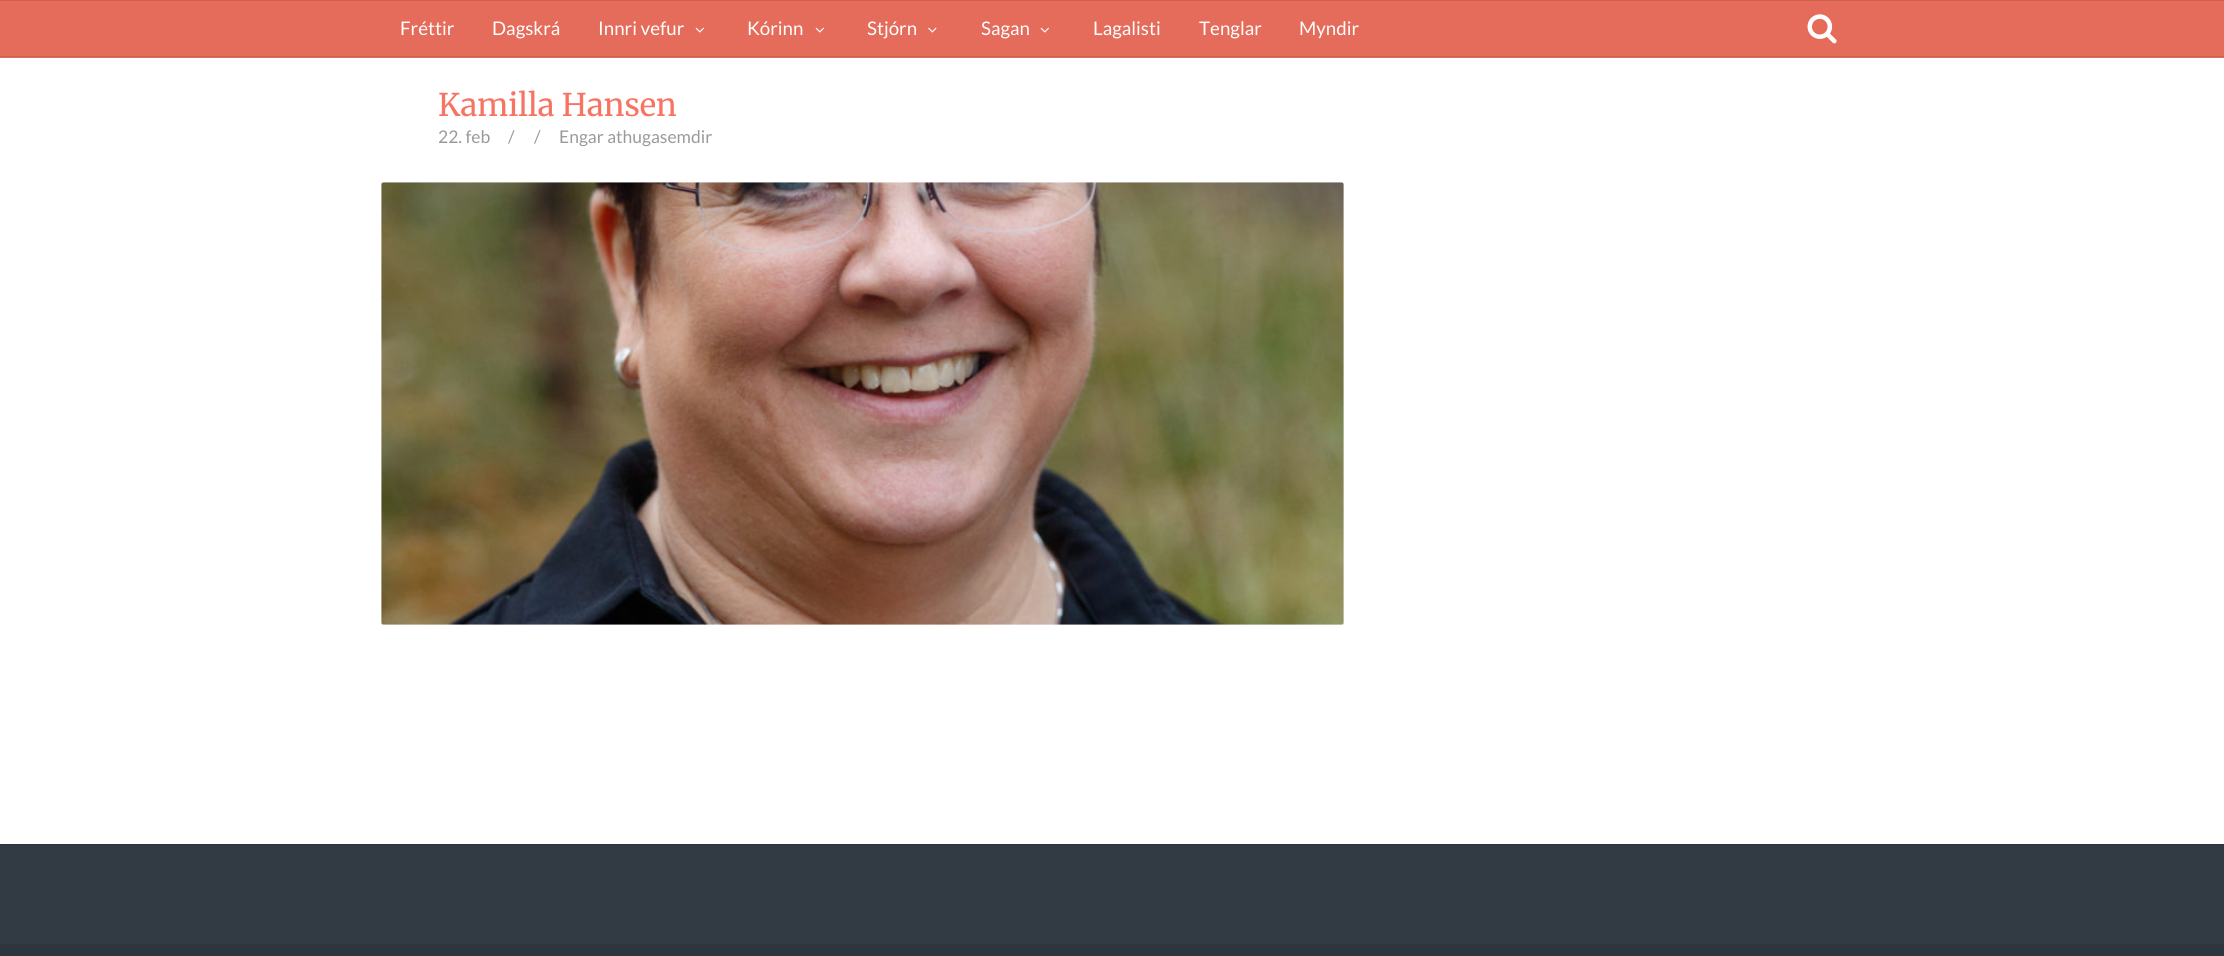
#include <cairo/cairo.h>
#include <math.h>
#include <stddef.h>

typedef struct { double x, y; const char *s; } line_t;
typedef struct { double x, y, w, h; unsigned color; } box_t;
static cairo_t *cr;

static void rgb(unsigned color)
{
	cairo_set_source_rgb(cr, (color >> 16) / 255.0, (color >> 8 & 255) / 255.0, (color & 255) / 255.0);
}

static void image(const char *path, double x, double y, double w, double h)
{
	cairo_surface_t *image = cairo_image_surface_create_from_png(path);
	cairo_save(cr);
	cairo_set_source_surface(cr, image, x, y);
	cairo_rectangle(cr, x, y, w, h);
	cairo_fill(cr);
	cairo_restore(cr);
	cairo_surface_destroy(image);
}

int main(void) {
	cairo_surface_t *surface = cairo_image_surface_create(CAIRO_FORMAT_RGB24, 2224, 956);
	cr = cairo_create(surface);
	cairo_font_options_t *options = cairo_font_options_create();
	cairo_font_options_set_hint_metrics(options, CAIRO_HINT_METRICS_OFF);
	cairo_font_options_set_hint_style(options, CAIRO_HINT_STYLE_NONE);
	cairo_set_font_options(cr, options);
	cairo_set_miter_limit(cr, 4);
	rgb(0xffffff);
	cairo_paint(cr);
	{
		static const box_t items[] = {
			{0, 1, 2224, 57, 0xe56b5b},
			{0, 56, 2224, 1, 0xce6052},
			{0, 0, 2224, 1, 0xce6052},
		};
		for (size_t i = 0; i < sizeof items / sizeof *items; i++) {
			rgb(items[i].color);
			cairo_rectangle(cr, items[i].x, items[i].y, items[i].w, items[i].h);
			cairo_fill(cr);
		}
	}
	image("img/1.png", 695, 27, 9, 6);
	image("img/1.png", 815, 27, 9, 6);
	image("img/2.png", 928, 27, 9, 6);
	image("img/1.png", 1040, 27, 9, 6);
	image("img/3.png", 1807, 14, 30, 30);
	rgb(0xf4f4f4);
	cairo_rectangle(cr, 381, 183, 963, 442);
	cairo_fill(cr);
	image("img/4.png", 381, 182, 963, 443);
	{
		static const box_t items[] = {
			{0, 845, 2224, 99, 0x323b44},
			{0, 844, 2224, 1, 0x2d353d},
			{0, 944, 2224, 12, 0x2d353d},
		};
		for (size_t i = 0; i < sizeof items / sizeof *items; i++) {
			rgb(items[i].color);
			cairo_rectangle(cr, items[i].x, items[i].y, items[i].w, items[i].h);
			cairo_fill(cr);
		}
	}
	cairo_select_font_face(cr, "Lato", CAIRO_FONT_SLANT_NORMAL, CAIRO_FONT_WEIGHT_NORMAL);
	cairo_set_font_size(cr, 18.75);
	rgb(0xffffff);
	{
		static const line_t items[] = {
			{400, 35, "Fréttir"},
			{492, 35, "Dagskrá"},
			{598, 35, "Innri vefur"},
			{747, 35, "Kórinn"},
			{867, 35, "Stjórn"},
			{981, 35, "Sagan"},
			{1093, 35, "Lagalisti"},
			{1199, 35, "Tenglar"},
			{1299, 35, "Myndir"},
		};
		for (size_t i = 0; i < sizeof items / sizeof *items; i++) {
			cairo_move_to(cr, items[i].x, items[i].y);
			cairo_show_text(cr, items[i].s);
		}
	}
	cairo_select_font_face(cr, "Merriweather", CAIRO_FONT_SLANT_NORMAL, CAIRO_FONT_WEIGHT_NORMAL);
	cairo_set_font_size(cr, 31.25);
	rgb(0xf77462);
	cairo_move_to(cr, 438, 116);
	cairo_show_text(cr, "Kamilla Hansen");
	cairo_select_font_face(cr, "Lato", CAIRO_FONT_SLANT_NORMAL, CAIRO_FONT_WEIGHT_NORMAL);
	cairo_set_font_size(cr, 17.5);
	rgb(0x9a9a9a);
	{
		static const line_t items[] = {
			{438, 143, "22. feb"},
			{508, 143, "/"},
			{534, 143, "/"},
			{559, 143, "Engar athugasemdir"},
		};
		for (size_t i = 0; i < sizeof items / sizeof *items; i++) {
			cairo_move_to(cr, items[i].x, items[i].y);
			cairo_show_text(cr, items[i].s);
		}
	}
	cairo_surface_write_to_png(surface, "page.png");
	cairo_font_options_destroy(options);
	cairo_destroy(cr);
	cairo_surface_destroy(surface);
	return 0;
}
